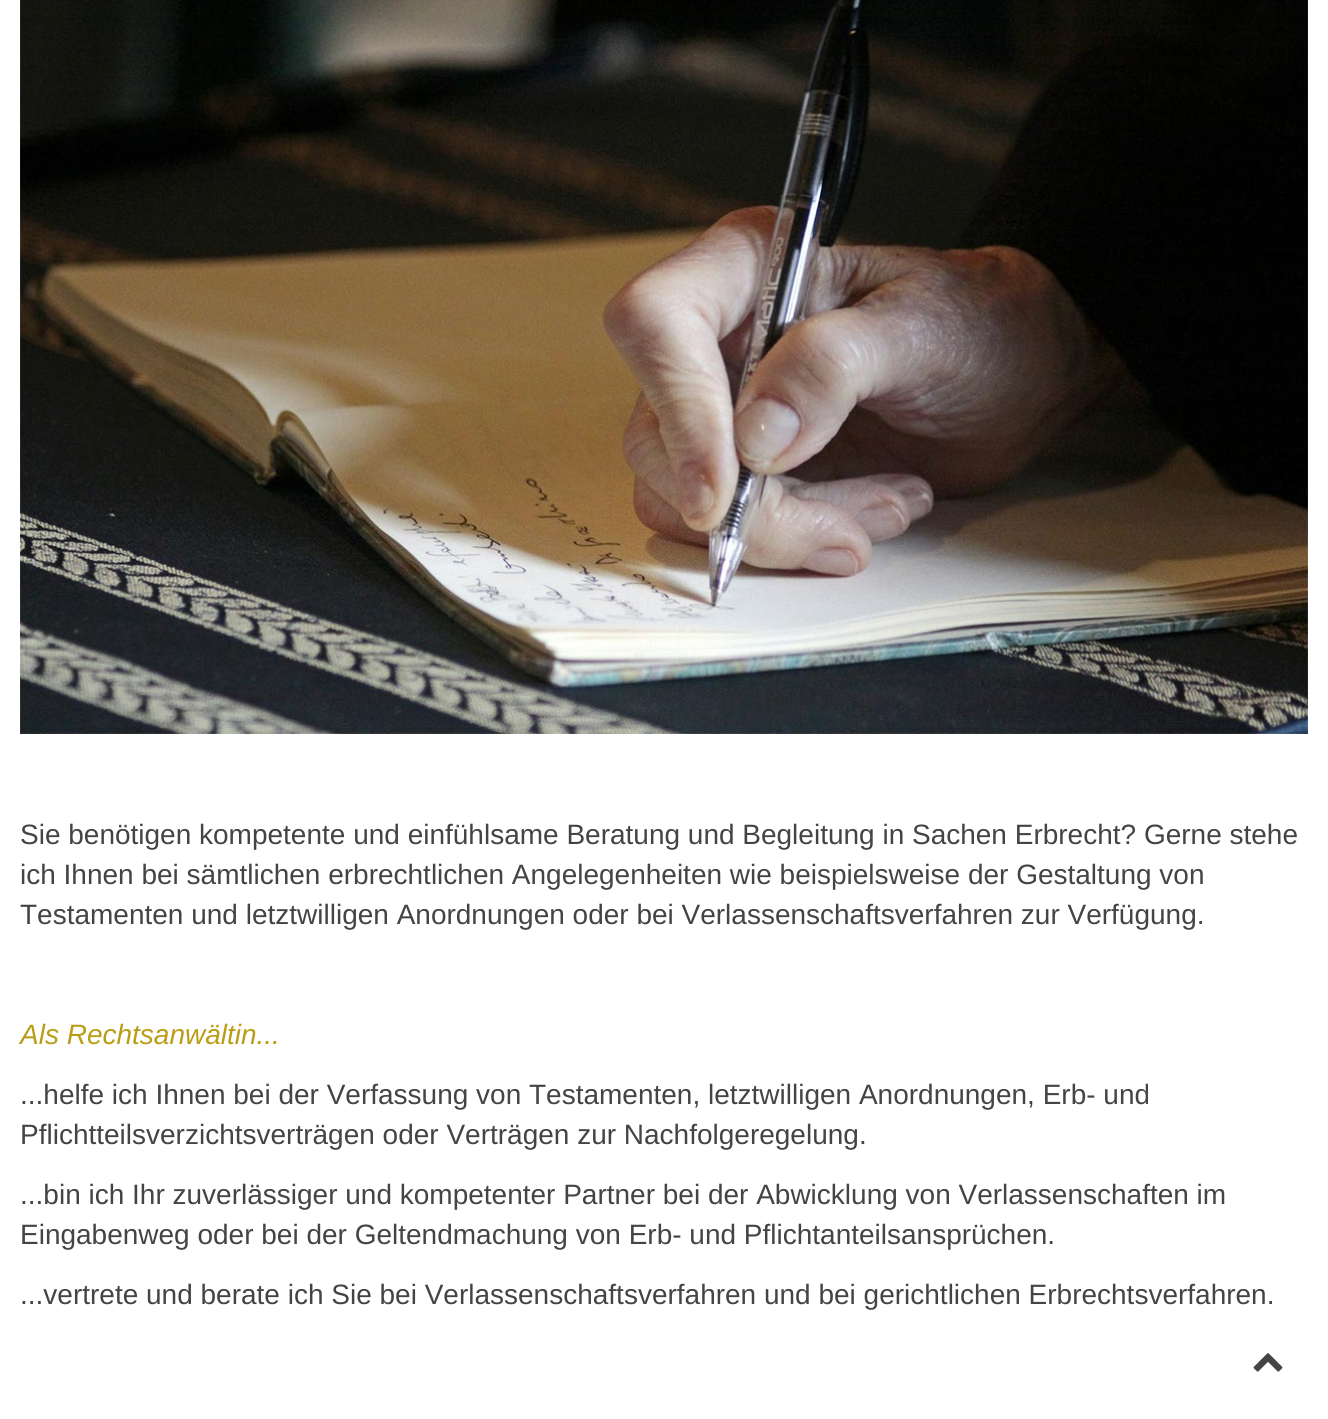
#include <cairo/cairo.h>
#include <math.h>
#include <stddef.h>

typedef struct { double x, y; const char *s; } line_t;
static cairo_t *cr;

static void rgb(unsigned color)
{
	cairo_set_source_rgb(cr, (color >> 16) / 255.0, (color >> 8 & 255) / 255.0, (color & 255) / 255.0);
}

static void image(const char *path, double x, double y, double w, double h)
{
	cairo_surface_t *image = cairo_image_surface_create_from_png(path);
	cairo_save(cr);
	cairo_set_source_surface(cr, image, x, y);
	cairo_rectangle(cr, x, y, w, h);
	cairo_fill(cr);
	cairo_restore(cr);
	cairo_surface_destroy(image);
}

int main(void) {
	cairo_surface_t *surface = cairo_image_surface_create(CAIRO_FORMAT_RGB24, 1328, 1419);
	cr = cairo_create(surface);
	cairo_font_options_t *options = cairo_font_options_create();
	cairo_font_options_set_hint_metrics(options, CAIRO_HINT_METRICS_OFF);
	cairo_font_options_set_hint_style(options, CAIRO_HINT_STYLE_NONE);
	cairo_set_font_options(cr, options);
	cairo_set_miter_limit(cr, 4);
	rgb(0xffffff);
	cairo_paint(cr);
	image("img/1.png", 20, 0, 1288, 734);
	image("img/2.png", 1253, 1353, 30, 19);
	cairo_select_font_face(cr, "Liberation Sans", CAIRO_FONT_SLANT_NORMAL, CAIRO_FONT_WEIGHT_NORMAL);
	cairo_set_font_size(cr, 28);
	rgb(0x444444);
	{
		static const line_t items[] = {
			{20, 844, "Sie benötigen kompetente und einfühlsame Beratung und Begleitung in Sachen Erbrecht? Gerne stehe"},
			{20, 884, "ich Ihnen bei sämtlichen erbrechtlichen Angelegenheiten wie beispielsweise der Gestaltung von"},
			{20, 924, "Testamenten und letztwilligen Anordnungen oder bei Verlassenschaftsverfahren zur Verfügung."},
		};
		for (size_t i = 0; i < sizeof items / sizeof *items; i++) {
			cairo_move_to(cr, items[i].x, items[i].y);
			cairo_show_text(cr, items[i].s);
		}
	}
	cairo_select_font_face(cr, "Liberation Sans", CAIRO_FONT_SLANT_ITALIC, CAIRO_FONT_WEIGHT_NORMAL);
	rgb(0xba9d17);
	cairo_move_to(cr, 20, 1044);
	cairo_show_text(cr, "Als Rechtsanwältin...");
	cairo_select_font_face(cr, "Liberation Sans", CAIRO_FONT_SLANT_NORMAL, CAIRO_FONT_WEIGHT_NORMAL);
	rgb(0x444444);
	{
		static const line_t items[] = {
			{20, 1104, "...helfe ich Ihnen bei der Verfassung von Testamenten, letztwilligen Anordnungen, Erb- und"},
			{20, 1144, "Pflichtteilsverzichtsverträgen oder Verträgen zur Nachfolgeregelung."},
			{20, 1204, "...bin ich Ihr zuverlässiger und kompetenter Partner bei der Abwicklung von Verlassenschaften im"},
			{20, 1244, "Eingabenweg oder bei der Geltendmachung von Erb- und Pflichtanteilsansprüchen."},
			{20, 1304, "...vertrete und berate ich Sie bei Verlassenschaftsverfahren und bei gerichtlichen Erbrechtsverfahren."},
		};
		for (size_t i = 0; i < sizeof items / sizeof *items; i++) {
			cairo_move_to(cr, items[i].x, items[i].y);
			cairo_show_text(cr, items[i].s);
		}
	}
	cairo_surface_write_to_png(surface, "page.png");
	cairo_font_options_destroy(options);
	cairo_destroy(cr);
	cairo_surface_destroy(surface);
	return 0;
}
